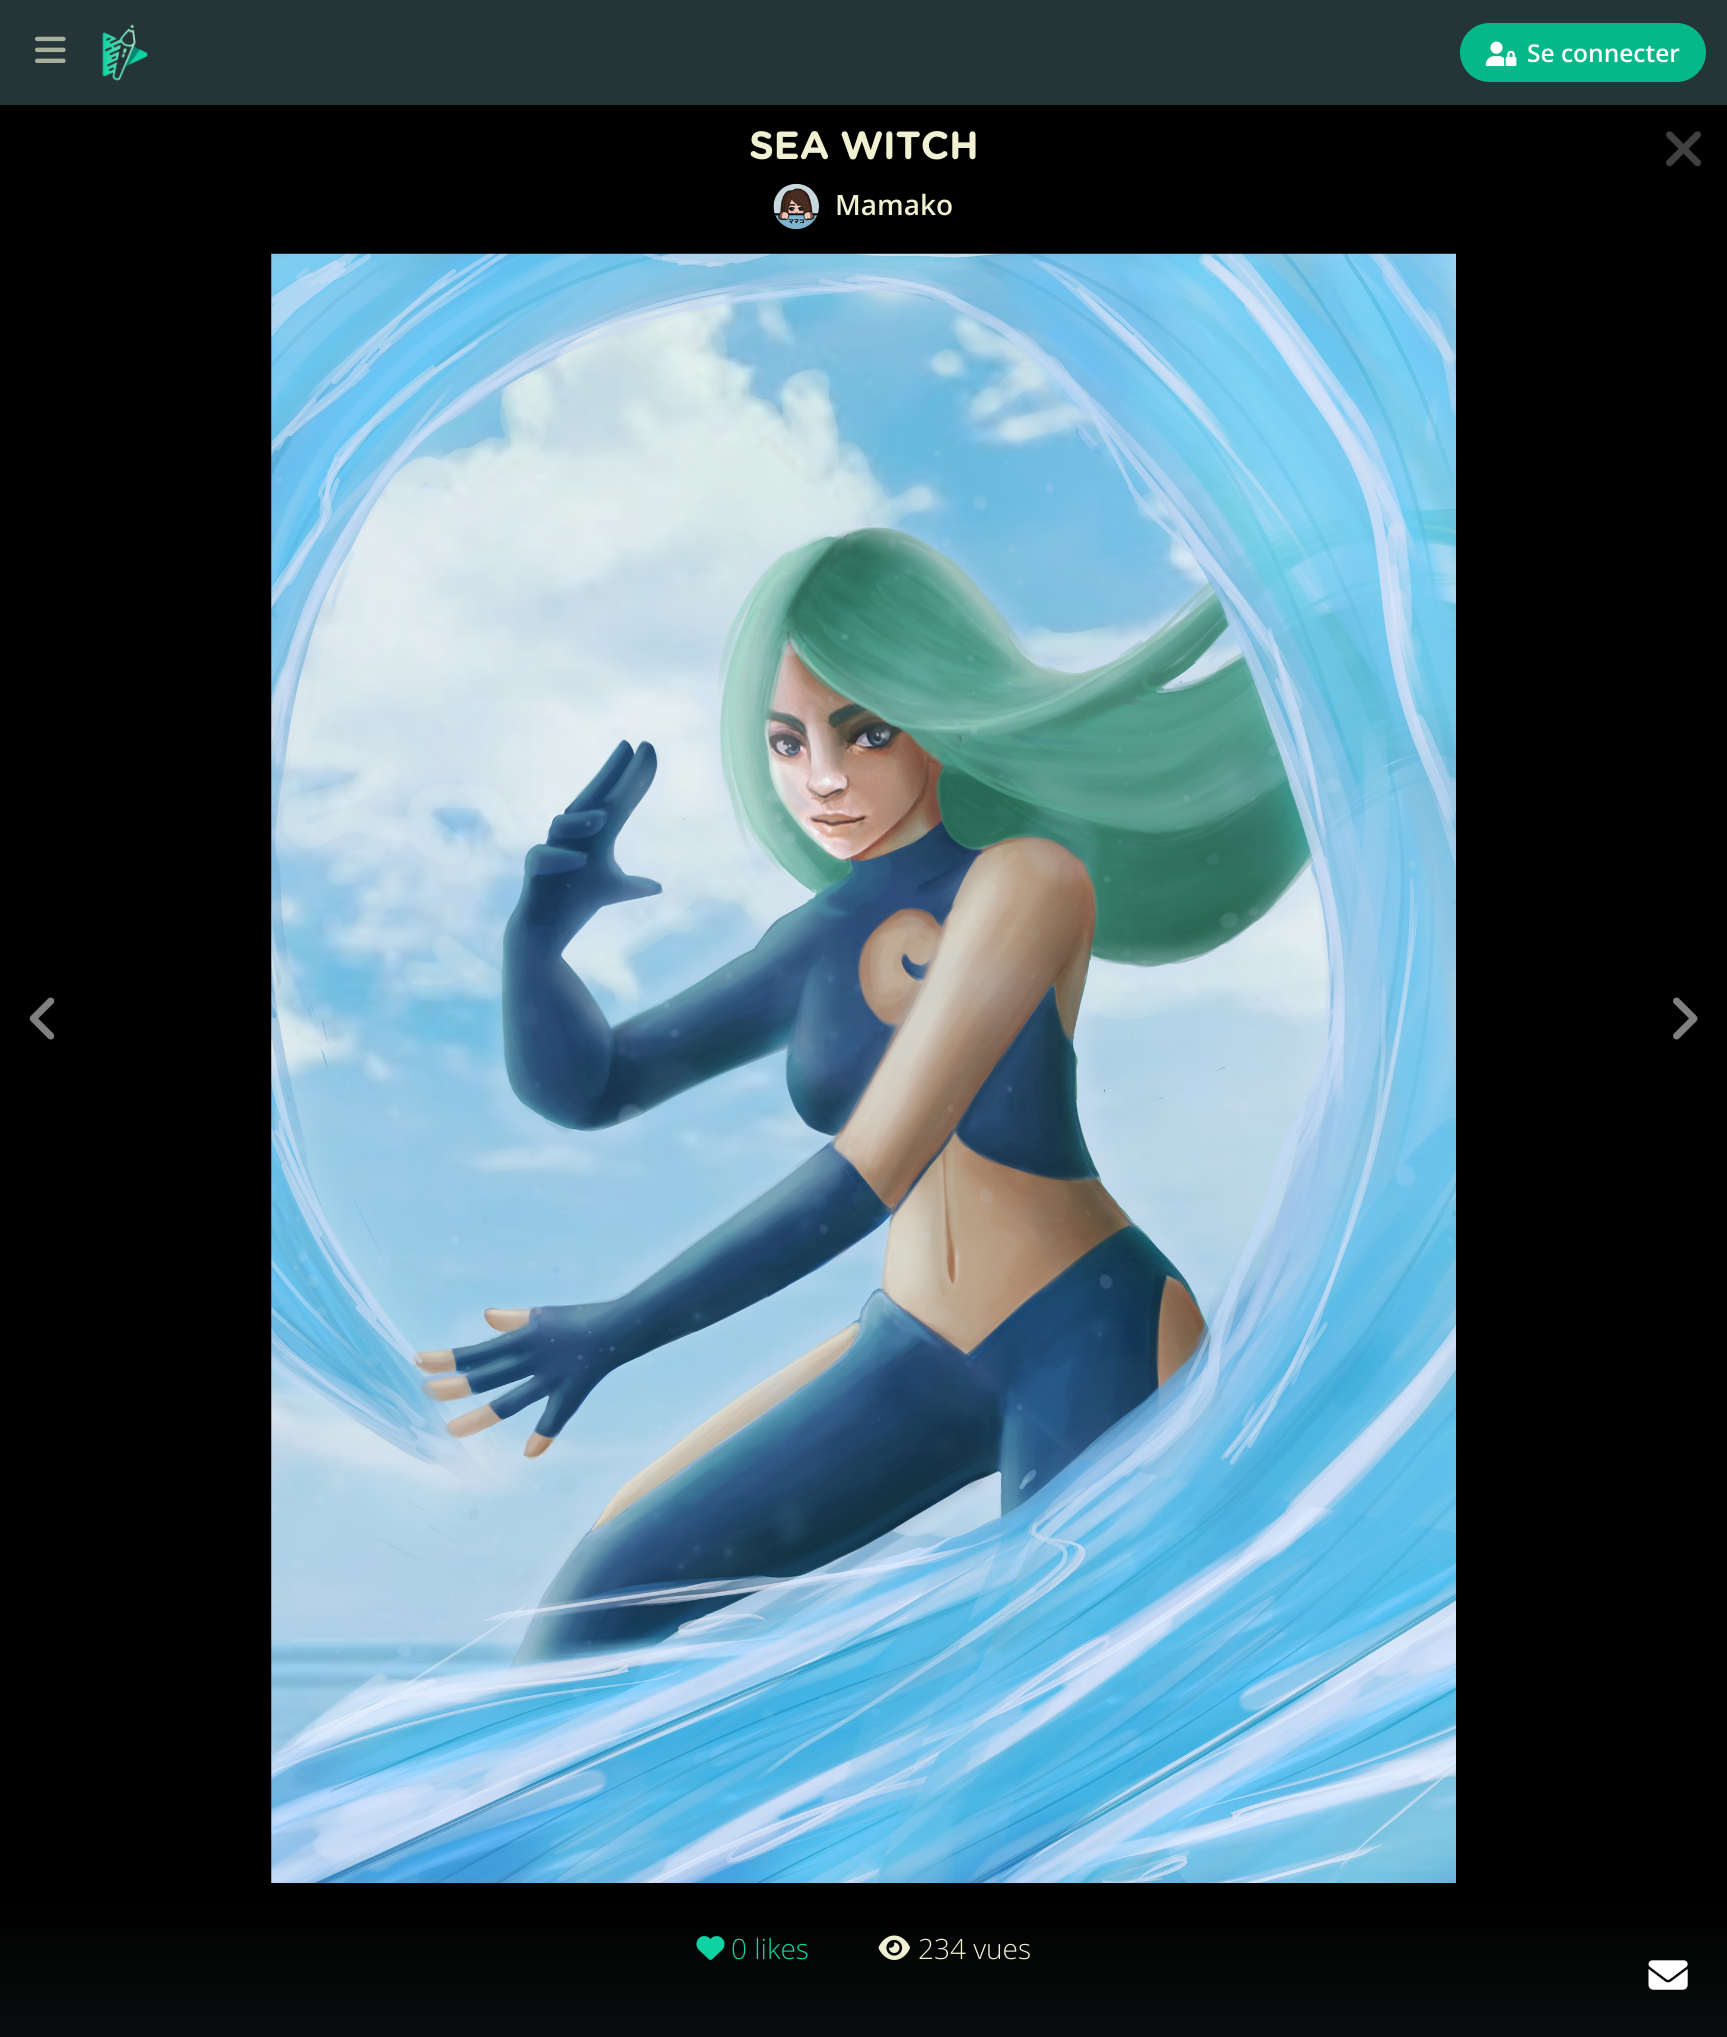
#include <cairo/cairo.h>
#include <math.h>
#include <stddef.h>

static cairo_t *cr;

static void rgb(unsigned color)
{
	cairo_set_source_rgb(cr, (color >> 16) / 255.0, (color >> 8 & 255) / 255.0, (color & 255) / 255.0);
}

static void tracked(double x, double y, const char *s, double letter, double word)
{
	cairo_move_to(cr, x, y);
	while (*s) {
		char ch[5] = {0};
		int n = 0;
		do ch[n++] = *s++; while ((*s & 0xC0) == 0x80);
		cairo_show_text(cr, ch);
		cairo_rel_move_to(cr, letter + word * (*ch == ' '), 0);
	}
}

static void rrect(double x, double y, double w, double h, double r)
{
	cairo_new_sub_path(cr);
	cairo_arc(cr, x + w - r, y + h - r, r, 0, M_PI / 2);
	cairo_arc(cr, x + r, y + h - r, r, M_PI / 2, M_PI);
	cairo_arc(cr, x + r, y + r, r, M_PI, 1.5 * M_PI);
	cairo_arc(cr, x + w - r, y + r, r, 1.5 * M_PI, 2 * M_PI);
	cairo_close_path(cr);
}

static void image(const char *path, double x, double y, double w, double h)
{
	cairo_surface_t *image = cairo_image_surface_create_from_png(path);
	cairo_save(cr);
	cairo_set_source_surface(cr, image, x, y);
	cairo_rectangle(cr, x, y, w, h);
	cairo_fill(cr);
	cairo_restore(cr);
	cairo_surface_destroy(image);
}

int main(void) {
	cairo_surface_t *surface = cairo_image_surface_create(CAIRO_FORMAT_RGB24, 1727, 2037);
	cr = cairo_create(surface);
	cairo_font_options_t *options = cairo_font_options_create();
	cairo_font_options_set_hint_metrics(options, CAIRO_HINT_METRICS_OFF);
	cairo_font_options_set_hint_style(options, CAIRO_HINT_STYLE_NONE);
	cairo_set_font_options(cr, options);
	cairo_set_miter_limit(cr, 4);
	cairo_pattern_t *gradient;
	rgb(0xffffff);
	cairo_paint(cr);
	rgb(0x253437);
	cairo_rectangle(cr, 0, 0, 1727, 105);
	cairo_fill(cr);
	image("img/1.png", 35, 36, 31, 27);
	image("img/2.png", 102, 24, 46, 57);
	rgb(0x04b889);
	rrect(1460, 23, 246, 59, 29.5);
	cairo_fill(cr);
	image("img/3.png", 1485, 41, 32, 26);
	rgb(0x000000);
	cairo_rectangle(cr, 0, 105, 1727, 1796);
	cairo_fill(cr);
	image("img/4.png", 1666, 131, 35, 36);
	image("img/5.png", 29, 997, 26, 43);
	image("img/6.png", 1673, 997, 25, 43);
	image("img/7.png", 773, 183, 46, 47);
	image("img/8.png", 271, 253, 1185, 1630);
	gradient = cairo_pattern_create_linear(864, 1901, 864, 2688);
	cairo_pattern_add_color_stop_rgba(gradient, 0, 0, 0, 0, 1);
	cairo_pattern_add_color_stop_rgba(gradient, 1, 0.22, 0.29, 0.306, 1);
	cairo_set_source(cr, gradient);
	cairo_pattern_destroy(gradient);
	cairo_rectangle(cr, 0, 1901, 1727, 136);
	cairo_fill(cr);
	image("img/9.png", 696, 1936, 29, 24);
	image("img/10.png", 878, 1935, 32, 25);
	image("img/11.png", 1648, 1960, 40, 30);
	cairo_select_font_face(cr, "Open Sans SemiBold", CAIRO_FONT_SLANT_NORMAL, CAIRO_FONT_WEIGHT_NORMAL);
	cairo_set_font_size(cr, 24.5);
	rgb(0xffffff);
	cairo_move_to(cr, 1527, 62);
	cairo_show_text(cr, "Se connecter");
	cairo_select_font_face(cr, "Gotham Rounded", CAIRO_FONT_SLANT_NORMAL, CAIRO_FONT_WEIGHT_BOLD);
	cairo_set_font_size(cr, 39.25);
	rgb(0xf0f0d2);
	tracked(749, 159, "SEA WITCH", -0.5, 0);
	cairo_select_font_face(cr, "Open Sans SemiBold", CAIRO_FONT_SLANT_NORMAL, CAIRO_FONT_WEIGHT_NORMAL);
	cairo_set_font_size(cr, 28);
	cairo_move_to(cr, 835, 215);
	cairo_show_text(cr, "Mamako");
	cairo_select_font_face(cr, "Open Sans Light", CAIRO_FONT_SLANT_NORMAL, CAIRO_FONT_WEIGHT_NORMAL);
	rgb(0x0fd2a3);
	cairo_move_to(cr, 731, 1959);
	cairo_show_text(cr, "0 likes");
	rgb(0xf0f0d2);
	cairo_move_to(cr, 918, 1959);
	cairo_show_text(cr, "234 vues");
	cairo_surface_write_to_png(surface, "page.png");
	cairo_font_options_destroy(options);
	cairo_destroy(cr);
	cairo_surface_destroy(surface);
	return 0;
}
